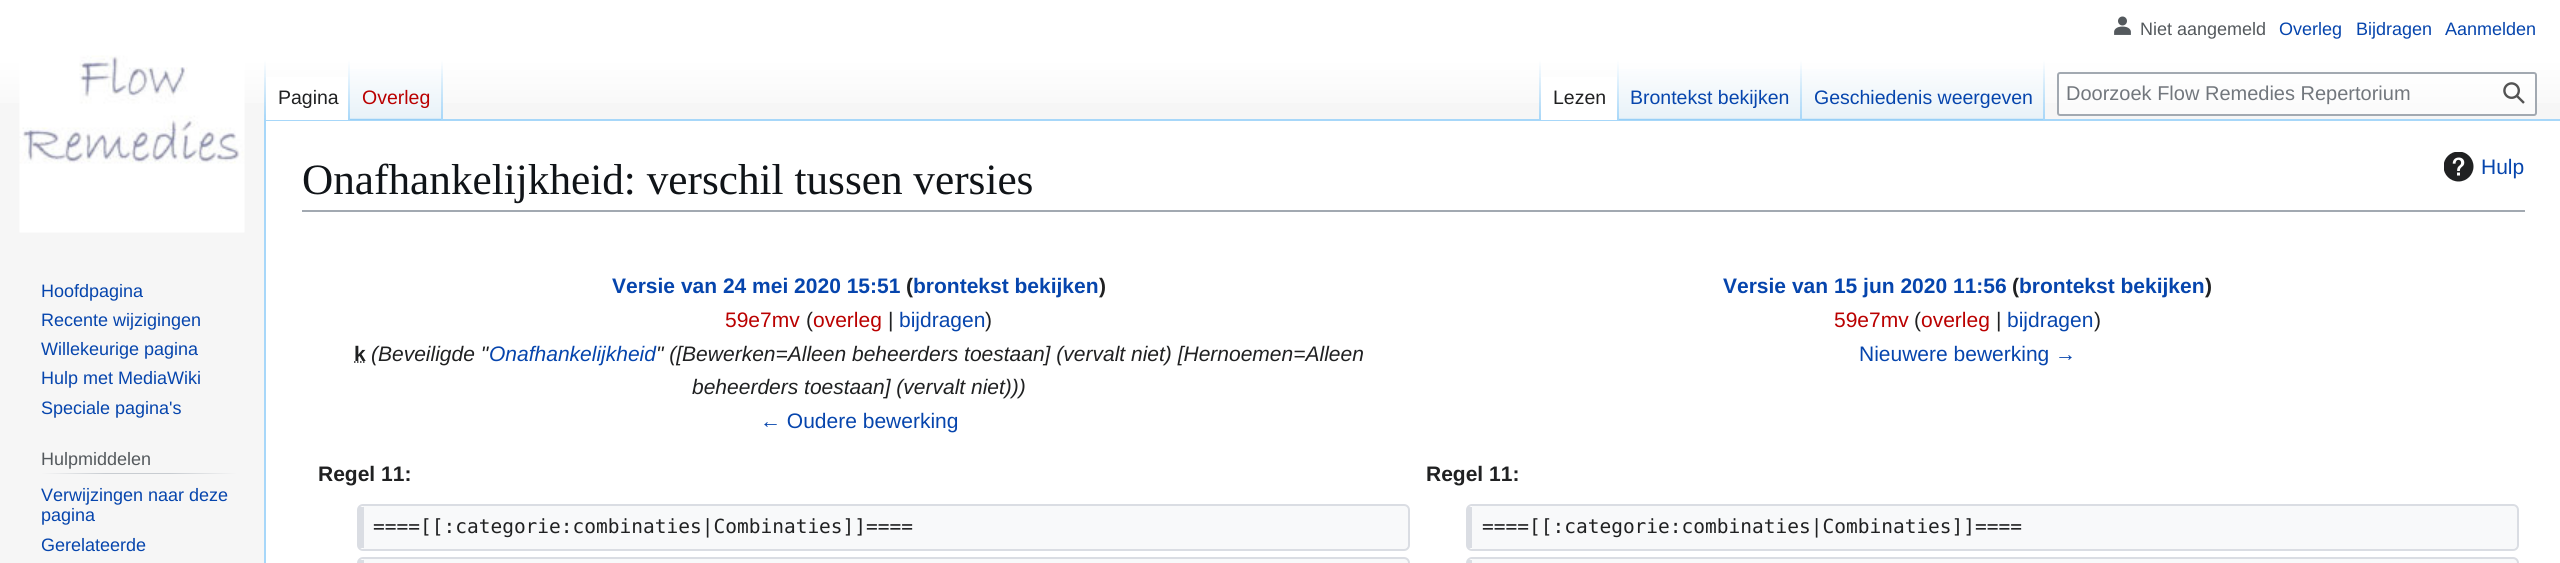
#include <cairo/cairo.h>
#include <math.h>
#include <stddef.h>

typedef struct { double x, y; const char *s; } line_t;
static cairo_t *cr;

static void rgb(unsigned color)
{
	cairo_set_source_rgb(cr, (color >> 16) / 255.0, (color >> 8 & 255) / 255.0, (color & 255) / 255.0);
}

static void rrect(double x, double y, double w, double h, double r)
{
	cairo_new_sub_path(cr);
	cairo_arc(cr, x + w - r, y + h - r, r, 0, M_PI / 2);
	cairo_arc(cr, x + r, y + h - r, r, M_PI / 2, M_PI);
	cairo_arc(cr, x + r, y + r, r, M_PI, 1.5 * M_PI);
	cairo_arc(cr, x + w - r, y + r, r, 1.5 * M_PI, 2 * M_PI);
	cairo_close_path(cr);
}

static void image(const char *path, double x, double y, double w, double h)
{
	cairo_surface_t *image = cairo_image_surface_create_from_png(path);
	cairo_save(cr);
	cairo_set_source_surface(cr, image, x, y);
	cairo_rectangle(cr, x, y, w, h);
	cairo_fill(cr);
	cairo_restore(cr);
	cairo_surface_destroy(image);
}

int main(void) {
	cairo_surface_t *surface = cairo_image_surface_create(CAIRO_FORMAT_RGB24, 2560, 563);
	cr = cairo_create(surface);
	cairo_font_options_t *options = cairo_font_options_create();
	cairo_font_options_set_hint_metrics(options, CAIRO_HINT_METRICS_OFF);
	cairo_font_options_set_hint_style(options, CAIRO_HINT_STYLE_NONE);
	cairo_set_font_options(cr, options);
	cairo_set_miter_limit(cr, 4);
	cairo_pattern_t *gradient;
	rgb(0xf6f6f6);
	cairo_paint(cr);
	gradient = cairo_pattern_create_linear(1280, 0, 1280, 120);
	cairo_pattern_add_color_stop_rgba(gradient, 0.5, 1, 1, 1, 1);
	cairo_pattern_add_color_stop_rgba(gradient, 1, 0.965, 0.965, 0.965, 1);
	cairo_set_source(cr, gradient);
	cairo_pattern_destroy(gradient);
	cairo_rectangle(cr, 0, 0, 2560, 103);
	cairo_fill(cr);
	image("img/1.png", 2114, 16, 17, 19);
	rgb(0xa7d7f9);
	cairo_rectangle(cr, 264, 119, 2296, 2);
	cairo_fill(cr);
	cairo_rectangle(cr, 264, 119, 2, 444);
	cairo_fill(cr);
	gradient = cairo_pattern_create_linear(265, 60, 265, 120);
	cairo_pattern_add_color_stop_rgba(gradient, 0, 0.655, 0.843, 0.976, 0);
	cairo_pattern_add_color_stop_rgba(gradient, 1, 0.655, 0.843, 0.976, 1);
	cairo_set_source(cr, gradient);
	cairo_pattern_destroy(gradient);
	cairo_rectangle(cr, 264, 60, 2, 60);
	cairo_fill(cr);
	rgb(0xffffff);
	cairo_rectangle(cr, 266, 77, 82, 43);
	cairo_fill(cr);
	gradient = cairo_pattern_create_linear(349, 60, 349, 120);
	cairo_pattern_add_color_stop_rgba(gradient, 0, 1, 1, 1, 1);
	cairo_pattern_add_color_stop_rgba(gradient, 1, 0.655, 0.843, 0.976, 1);
	cairo_set_source(cr, gradient);
	cairo_pattern_destroy(gradient);
	cairo_rectangle(cr, 348, 60, 2, 60);
	cairo_fill(cr);
	gradient = cairo_pattern_create_linear(396, 120, 396, 60);
	cairo_pattern_add_color_stop_rgba(gradient, 0, 0.467, 0.757, 0.965, 1);
	cairo_pattern_add_color_stop_rgba(gradient, 0.03, 0.91, 0.949, 0.973, 1);
	cairo_pattern_add_color_stop_rgba(gradient, 1, 1, 1, 1, 1);
	cairo_set_source(cr, gradient);
	cairo_pattern_destroy(gradient);
	cairo_rectangle(cr, 350, 69, 93, 51);
	cairo_fill(cr);
	gradient = cairo_pattern_create_linear(442, 60, 442, 120);
	cairo_pattern_add_color_stop_rgba(gradient, 0, 0.655, 0.843, 0.976, 0);
	cairo_pattern_add_color_stop_rgba(gradient, 1, 0.655, 0.843, 0.976, 1);
	cairo_set_source(cr, gradient);
	cairo_pattern_destroy(gradient);
	cairo_rectangle(cr, 441, 60, 2, 60);
	cairo_fill(cr);
	gradient = cairo_pattern_create_linear(1540, 60, 1540, 120);
	cairo_pattern_add_color_stop_rgba(gradient, 0, 0.655, 0.843, 0.976, 0);
	cairo_pattern_add_color_stop_rgba(gradient, 1, 0.655, 0.843, 0.976, 1);
	cairo_set_source(cr, gradient);
	cairo_pattern_destroy(gradient);
	cairo_rectangle(cr, 1539, 60, 2, 60);
	cairo_fill(cr);
	rgb(0xffffff);
	cairo_rectangle(cr, 1541, 77, 76, 43);
	cairo_fill(cr);
	gradient = cairo_pattern_create_linear(1618, 60, 1618, 120);
	cairo_pattern_add_color_stop_rgba(gradient, 0, 1, 1, 1, 1);
	cairo_pattern_add_color_stop_rgba(gradient, 1, 0.655, 0.843, 0.976, 1);
	cairo_set_source(cr, gradient);
	cairo_pattern_destroy(gradient);
	cairo_rectangle(cr, 1617, 60, 2, 60);
	cairo_fill(cr);
	gradient = cairo_pattern_create_linear(1710, 120, 1710, 60);
	cairo_pattern_add_color_stop_rgba(gradient, 0, 0.467, 0.757, 0.965, 1);
	cairo_pattern_add_color_stop_rgba(gradient, 0.03, 0.91, 0.949, 0.973, 1);
	cairo_pattern_add_color_stop_rgba(gradient, 1, 1, 1, 1, 1);
	cairo_set_source(cr, gradient);
	cairo_pattern_destroy(gradient);
	cairo_rectangle(cr, 1619, 69, 183, 51);
	cairo_fill(cr);
	gradient = cairo_pattern_create_linear(1801, 60, 1801, 120);
	cairo_pattern_add_color_stop_rgba(gradient, 0, 0.655, 0.843, 0.976, 0);
	cairo_pattern_add_color_stop_rgba(gradient, 1, 0.655, 0.843, 0.976, 1);
	cairo_set_source(cr, gradient);
	cairo_pattern_destroy(gradient);
	cairo_rectangle(cr, 1800, 60, 2, 60);
	cairo_fill(cr);
	gradient = cairo_pattern_create_linear(1923, 120, 1923, 60);
	cairo_pattern_add_color_stop_rgba(gradient, 0, 0.467, 0.757, 0.965, 1);
	cairo_pattern_add_color_stop_rgba(gradient, 0.03, 0.91, 0.949, 0.973, 1);
	cairo_pattern_add_color_stop_rgba(gradient, 1, 1, 1, 1, 1);
	cairo_set_source(cr, gradient);
	cairo_pattern_destroy(gradient);
	cairo_rectangle(cr, 1802, 69, 243, 51);
	cairo_fill(cr);
	gradient = cairo_pattern_create_linear(2044, 60, 2044, 120);
	cairo_pattern_add_color_stop_rgba(gradient, 0, 0.655, 0.843, 0.976, 0);
	cairo_pattern_add_color_stop_rgba(gradient, 1, 0.655, 0.843, 0.976, 1);
	cairo_set_source(cr, gradient);
	cairo_pattern_destroy(gradient);
	cairo_rectangle(cr, 2043, 60, 2, 60);
	cairo_fill(cr);
	cairo_set_source_rgba(cr, 1, 1, 1, 0.5);
	rrect(2058, 73, 478, 42, 2);
	cairo_fill_preserve(cr);
	rgb(0xa2a9b1);
	cairo_stroke(cr);
	image("img/2.png", 2503, 82, 22, 22);
	image("img/3.png", 19, 55, 226, 178);
	gradient = cairo_pattern_create_linear(41, 473, 237, 473);
	cairo_pattern_add_color_stop_rgba(gradient, 0, 0.965, 0.965, 0.965, 1);
	cairo_pattern_add_color_stop_rgba(gradient, 0.33, 0.784, 0.8, 0.82, 1);
	cairo_pattern_add_color_stop_rgba(gradient, 0.66, 0.784, 0.8, 0.82, 1);
	cairo_pattern_add_color_stop_rgba(gradient, 1, 0.965, 0.965, 0.965, 1);
	cairo_set_source(cr, gradient);
	cairo_pattern_destroy(gradient);
	cairo_rectangle(cr, 41, 473, 196, 1);
	cairo_fill(cr);
	rgb(0xffffff);
	cairo_rectangle(cr, 266, 121, 2294, 442);
	cairo_fill(cr);
	rgb(0xa2a9b1);
	cairo_rectangle(cr, 302, 210, 2223, 2);
	cairo_fill(cr);
	image("img/4.png", 2444, 152, 30, 30);
	cairo_new_path(cr);
	cairo_move_to(cr, 354, 362);
	cairo_line_to(cr, 365.5, 362);
	rgb(0x202122);
	cairo_set_line_width(cr, 1.5);
	cairo_set_dash(cr, (double[]){1.5, 1.5}, 2, 0);
	cairo_stroke(cr);
	rgb(0xf8f9fa);
	cairo_new_path(cr);
	cairo_move_to(cr, 363, 506);
	cairo_line_to(cr, 1404, 506);
	cairo_curve_to(cr, 1406, 506, 1408, 508, 1408, 510);
	cairo_line_to(cr, 1408, 544);
	cairo_curve_to(cr, 1408, 547, 1406, 549, 1404, 549);
	cairo_line_to(cr, 363, 549);
	cairo_line_to(cr, 363, 544);
	cairo_line_to(cr, 363, 510);
	cairo_close_path(cr);
	cairo_fill(cr);
	rrect(358, 505, 1051, 45, 5);
	rgb(0xdadde3);
	cairo_set_line_width(cr, 2);
	cairo_set_dash(cr, NULL, 0, 0);
	cairo_stroke(cr);
	cairo_rectangle(cr, 359, 507, 5, 41);
	cairo_fill(cr);
	rgb(0xf8f9fa);
	cairo_new_path(cr);
	cairo_move_to(cr, 1472, 506);
	cairo_line_to(cr, 2512, 506);
	cairo_curve_to(cr, 2515, 506, 2517, 508, 2517, 510);
	cairo_line_to(cr, 2517, 544);
	cairo_curve_to(cr, 2517, 547, 2515, 549, 2512, 549);
	cairo_line_to(cr, 1472, 549);
	cairo_line_to(cr, 1472, 544);
	cairo_line_to(cr, 1472, 510);
	cairo_close_path(cr);
	cairo_fill(cr);
	rrect(1467, 505, 1051, 45, 5);
	rgb(0xdadde3);
	cairo_stroke(cr);
	cairo_rectangle(cr, 1468, 507, 4, 41);
	cairo_fill(cr);
	rgb(0xf8f9fa);
	cairo_new_path(cr);
	cairo_move_to(cr, 363, 558);
	cairo_line_to(cr, 1404, 558);
	cairo_curve_to(cr, 1406, 558, 1408, 560, 1408, 563);
	cairo_line_to(cr, 1408, 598);
	cairo_curve_to(cr, 1408, 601, 1406, 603, 1404, 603);
	cairo_line_to(cr, 363, 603);
	cairo_line_to(cr, 363, 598);
	cairo_line_to(cr, 363, 563);
	cairo_close_path(cr);
	cairo_fill(cr);
	rrect(358, 558, 1051, 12, 5);
	rgb(0xdadde3);
	cairo_stroke(cr);
	cairo_rectangle(cr, 359, 560, 5, 3);
	cairo_fill(cr);
	rgb(0xf8f9fa);
	cairo_new_path(cr);
	cairo_move_to(cr, 1472, 558);
	cairo_line_to(cr, 2512, 558);
	cairo_curve_to(cr, 2515, 558, 2517, 560, 2517, 563);
	cairo_line_to(cr, 2517, 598);
	cairo_curve_to(cr, 2517, 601, 2515, 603, 2512, 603);
	cairo_line_to(cr, 1472, 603);
	cairo_line_to(cr, 1472, 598);
	cairo_line_to(cr, 1472, 563);
	cairo_close_path(cr);
	cairo_fill(cr);
	rrect(1467, 558, 1051, 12, 5);
	rgb(0xdadde3);
	cairo_stroke(cr);
	cairo_rectangle(cr, 1467, 560, 5, 3);
	cairo_fill(cr);
	cairo_select_font_face(cr, "Liberation Sans", CAIRO_FONT_SLANT_NORMAL, CAIRO_FONT_WEIGHT_NORMAL);
	cairo_set_font_size(cr, 18);
	rgb(0x54595d);
	cairo_move_to(cr, 2140, 35);
	cairo_show_text(cr, "Niet aangemeld");
	rgb(0x0645ad);
	{
		static const line_t items[] = {
			{2279, 35, "Overleg"},
			{2356, 35, "Bijdragen"},
			{2445, 35, "Aanmelden"},
		};
		for (size_t i = 0; i < sizeof items / sizeof *items; i++) {
			cairo_move_to(cr, items[i].x, items[i].y);
			cairo_show_text(cr, items[i].s);
		}
	}
	cairo_set_font_size(cr, 19.5);
	rgb(0x202122);
	cairo_move_to(cr, 278, 104);
	cairo_show_text(cr, "Pagina");
	rgb(0xba0000);
	cairo_move_to(cr, 362, 104);
	cairo_show_text(cr, "Overleg");
	rgb(0x202122);
	cairo_move_to(cr, 1553, 104);
	cairo_show_text(cr, "Lezen");
	rgb(0x0645ad);
	cairo_move_to(cr, 1630, 104);
	cairo_show_text(cr, "Brontekst bekijken");
	cairo_move_to(cr, 1814, 104);
	cairo_show_text(cr, "Geschiedenis weergeven");
	cairo_set_font_size(cr, 20);
	rgb(0x72777d);
	cairo_move_to(cr, 2066, 100);
	cairo_show_text(cr, "Doorzoek Flow Remedies Repertorium");
	cairo_set_font_size(cr, 18);
	rgb(0x0645ad);
	{
		static const line_t items[] = {
			{41, 297, "Hoofdpagina"},
			{41, 326, "Recente wijzigingen"},
			{41, 355, "Willekeurige pagina"},
			{41, 384, "Hulp met MediaWiki"},
			{41, 414, "Speciale pagina's"},
		};
		for (size_t i = 0; i < sizeof items / sizeof *items; i++) {
			cairo_move_to(cr, items[i].x, items[i].y);
			cairo_show_text(cr, items[i].s);
		}
	}
	rgb(0x54595d);
	cairo_move_to(cr, 41, 465);
	cairo_show_text(cr, "Hulpmiddelen");
	rgb(0x0645ad);
	{
		static const line_t items[] = {
			{41, 501, "Verwijzingen naar deze"},
			{41, 521, "pagina"},
			{41, 551, "Gerelateerde"},
		};
		for (size_t i = 0; i < sizeof items / sizeof *items; i++) {
			cairo_move_to(cr, items[i].x, items[i].y);
			cairo_show_text(cr, items[i].s);
		}
	}
	cairo_select_font_face(cr, "Liberation Serif", CAIRO_FONT_SLANT_NORMAL, CAIRO_FONT_WEIGHT_NORMAL);
	cairo_set_font_size(cr, 43.25);
	rgb(0x101418);
	cairo_move_to(cr, 302, 194);
	cairo_show_text(cr, "Onafhankelijkheid: verschil tussen versies");
	cairo_select_font_face(cr, "Liberation Sans", CAIRO_FONT_SLANT_NORMAL, CAIRO_FONT_WEIGHT_NORMAL);
	cairo_set_font_size(cr, 21);
	rgb(0x0645ad);
	cairo_move_to(cr, 2481, 174);
	cairo_show_text(cr, "Hulp");
	cairo_select_font_face(cr, "Liberation Sans", CAIRO_FONT_SLANT_NORMAL, CAIRO_FONT_WEIGHT_BOLD);
	cairo_move_to(cr, 612, 293);
	cairo_show_text(cr, "Versie van 24 mei 2020 15:51");
	rgb(0x202122);
	cairo_move_to(cr, 906, 293);
	cairo_show_text(cr, "(");
	rgb(0x0645ad);
	cairo_move_to(cr, 913, 293);
	cairo_show_text(cr, "brontekst bekijken");
	rgb(0x202122);
	cairo_move_to(cr, 1099, 293);
	cairo_show_text(cr, ")");
	cairo_select_font_face(cr, "Liberation Sans", CAIRO_FONT_SLANT_NORMAL, CAIRO_FONT_WEIGHT_NORMAL);
	rgb(0xba0000);
	cairo_move_to(cr, 725, 327);
	cairo_show_text(cr, "59e7mv");
	rgb(0x202122);
	cairo_move_to(cr, 806, 327);
	cairo_show_text(cr, "(");
	rgb(0xba0000);
	cairo_move_to(cr, 813, 327);
	cairo_show_text(cr, "overleg");
	rgb(0x202122);
	cairo_move_to(cr, 888, 327);
	cairo_show_text(cr, "|");
	rgb(0x0645ad);
	cairo_move_to(cr, 899, 327);
	cairo_show_text(cr, "bijdragen");
	rgb(0x202122);
	cairo_move_to(cr, 985, 327);
	cairo_show_text(cr, ")");
	cairo_select_font_face(cr, "Liberation Sans", CAIRO_FONT_SLANT_NORMAL, CAIRO_FONT_WEIGHT_BOLD);
	cairo_move_to(cr, 354, 361);
	cairo_show_text(cr, "k");
	cairo_select_font_face(cr, "Liberation Sans", CAIRO_FONT_SLANT_ITALIC, CAIRO_FONT_WEIGHT_NORMAL);
	cairo_move_to(cr, 371, 361);
	cairo_show_text(cr, "(Beveiligde \"");
	rgb(0x0645ad);
	cairo_move_to(cr, 489, 361);
	cairo_show_text(cr, "Onafhankelijkheid");
	rgb(0x202122);
	cairo_move_to(cr, 656, 361);
	cairo_show_text(cr, "\" ([Bewerken=Alleen beheerders toestaan] (vervalt niet) [Hernoemen=Alleen");
	cairo_move_to(cr, 692, 394);
	cairo_show_text(cr, "beheerders toestaan] (vervalt niet)))");
	cairo_select_font_face(cr, "Liberation Sans", CAIRO_FONT_SLANT_NORMAL, CAIRO_FONT_WEIGHT_NORMAL);
	rgb(0x0645ad);
	cairo_move_to(cr, 760, 428);
	cairo_show_text(cr, "← Oudere bewerking");
	cairo_select_font_face(cr, "Liberation Sans", CAIRO_FONT_SLANT_NORMAL, CAIRO_FONT_WEIGHT_BOLD);
	cairo_move_to(cr, 1723, 293);
	cairo_show_text(cr, "Versie van 15 jun 2020 11:56");
	rgb(0x202122);
	cairo_move_to(cr, 2012, 293);
	cairo_show_text(cr, "(");
	rgb(0x0645ad);
	cairo_move_to(cr, 2019, 293);
	cairo_show_text(cr, "brontekst bekijken");
	rgb(0x202122);
	cairo_move_to(cr, 2205, 293);
	cairo_show_text(cr, ")");
	cairo_select_font_face(cr, "Liberation Sans", CAIRO_FONT_SLANT_NORMAL, CAIRO_FONT_WEIGHT_NORMAL);
	rgb(0xba0000);
	cairo_move_to(cr, 1834, 327);
	cairo_show_text(cr, "59e7mv");
	rgb(0x202122);
	cairo_move_to(cr, 1914, 327);
	cairo_show_text(cr, "(");
	rgb(0xba0000);
	cairo_move_to(cr, 1921, 327);
	cairo_show_text(cr, "overleg");
	rgb(0x202122);
	cairo_move_to(cr, 1996, 327);
	cairo_show_text(cr, "|");
	rgb(0x0645ad);
	cairo_move_to(cr, 2007, 327);
	cairo_show_text(cr, "bijdragen");
	rgb(0x202122);
	cairo_move_to(cr, 2094, 327);
	cairo_show_text(cr, ")");
	rgb(0x0645ad);
	cairo_move_to(cr, 1859, 361);
	cairo_show_text(cr, "Nieuwere bewerking →");
	cairo_select_font_face(cr, "Liberation Sans", CAIRO_FONT_SLANT_NORMAL, CAIRO_FONT_WEIGHT_BOLD);
	rgb(0x202122);
	cairo_move_to(cr, 318, 481);
	cairo_show_text(cr, "Regel 11:");
	cairo_move_to(cr, 1426, 481);
	cairo_show_text(cr, "Regel 11:");
	cairo_select_font_face(cr, "DejaVu Sans Mono", CAIRO_FONT_SLANT_NORMAL, CAIRO_FONT_WEIGHT_NORMAL);
	cairo_set_font_size(cr, 19.5);
	cairo_move_to(cr, 373, 533);
	cairo_show_text(cr, "====[[:categorie:combinaties|Combinaties]]====");
	cairo_move_to(cr, 1482, 533);
	cairo_show_text(cr, "====[[:categorie:combinaties|Combinaties]]====");
	cairo_surface_write_to_png(surface, "page.png");
	cairo_font_options_destroy(options);
	cairo_destroy(cr);
	cairo_surface_destroy(surface);
	return 0;
}
